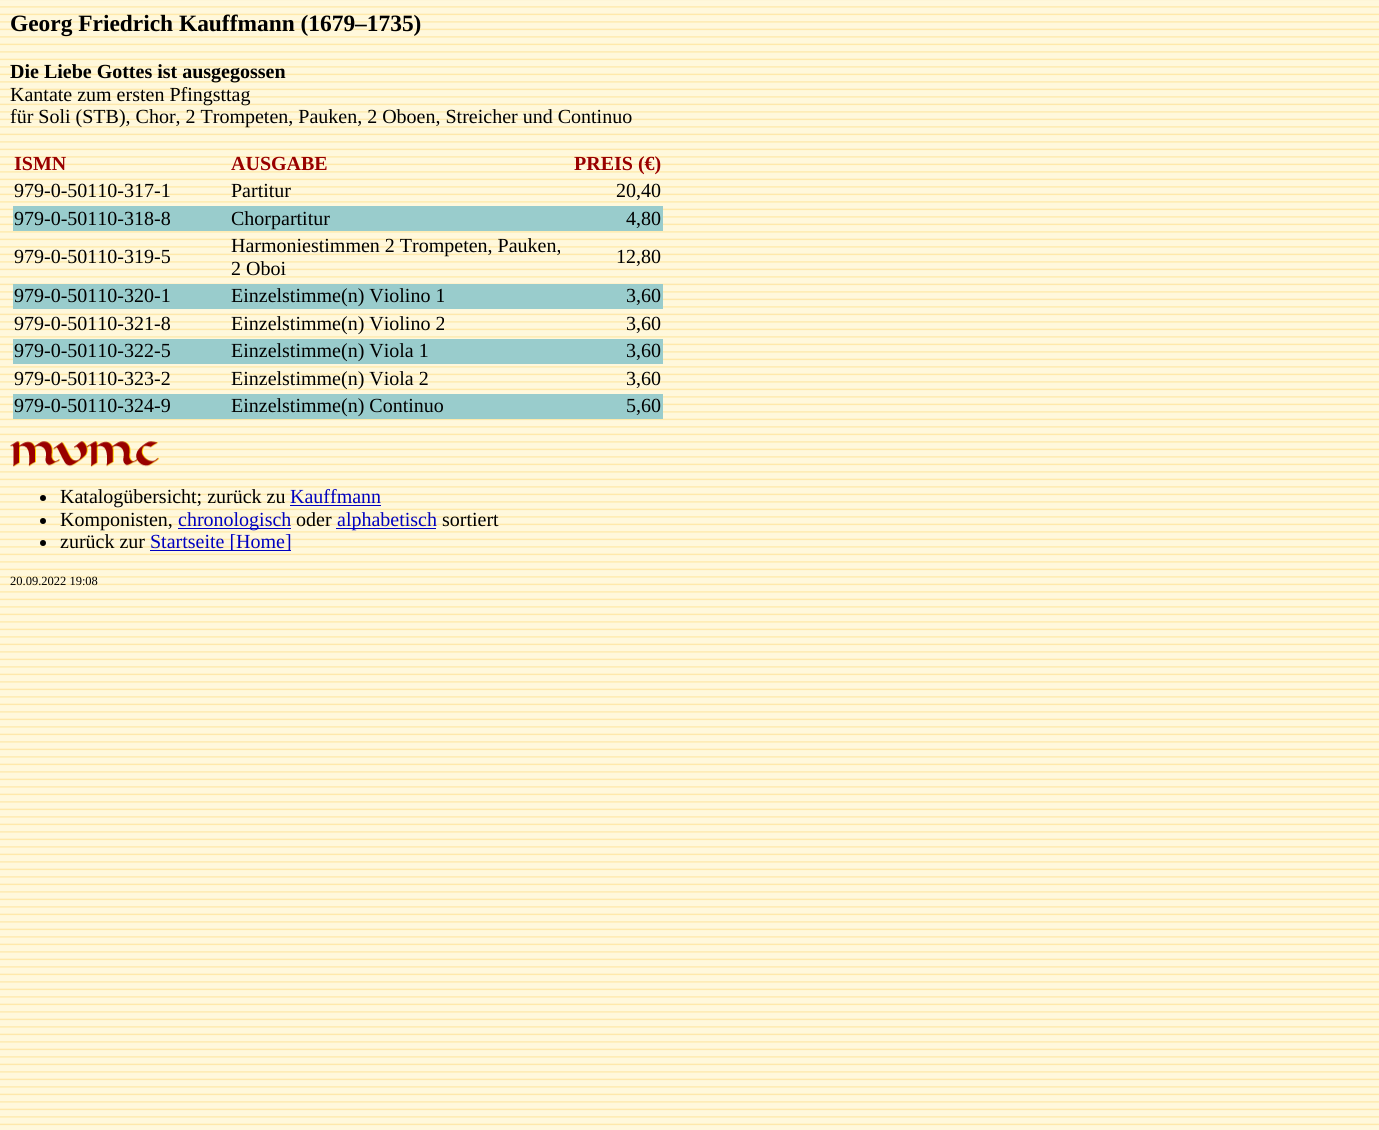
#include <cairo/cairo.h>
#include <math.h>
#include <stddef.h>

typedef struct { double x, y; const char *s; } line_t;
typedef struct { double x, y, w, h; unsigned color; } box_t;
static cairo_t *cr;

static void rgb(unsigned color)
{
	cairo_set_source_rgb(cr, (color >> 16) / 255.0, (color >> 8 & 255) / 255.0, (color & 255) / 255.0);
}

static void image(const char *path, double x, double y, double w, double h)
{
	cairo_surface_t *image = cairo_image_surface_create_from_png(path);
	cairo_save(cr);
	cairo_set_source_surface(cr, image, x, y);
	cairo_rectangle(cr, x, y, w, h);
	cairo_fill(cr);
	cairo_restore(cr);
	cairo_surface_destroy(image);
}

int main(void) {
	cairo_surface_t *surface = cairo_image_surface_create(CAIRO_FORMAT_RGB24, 1379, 1130);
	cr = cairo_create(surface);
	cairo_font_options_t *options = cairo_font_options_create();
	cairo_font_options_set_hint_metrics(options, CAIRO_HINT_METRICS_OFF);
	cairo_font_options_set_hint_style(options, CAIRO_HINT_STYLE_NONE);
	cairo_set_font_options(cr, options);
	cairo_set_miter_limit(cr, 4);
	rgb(0xfff8dc);
	cairo_paint(cr);
	image("img/1.png", 0, 0, 1379, 1126);
	{
		static const box_t items[] = {
			{13, 206, 650, 25, 0x99cccc},
			{13, 284, 650, 25, 0x99cccc},
			{13, 339, 650, 25, 0x99cccc},
			{13, 394, 650, 25, 0x99cccc},
		};
		for (size_t i = 0; i < sizeof items / sizeof *items; i++) {
			rgb(items[i].color);
			cairo_rectangle(cr, items[i].x, items[i].y, items[i].w, items[i].h);
			cairo_fill(cr);
		}
	}
	image("img/2.png", 10, 441, 150, 26);
	rgb(0x000000);
	cairo_arc(cr, 43, 498, 3, 0, 2 * M_PI);
	cairo_fill(cr);
	rgb(0x0000c0);
	cairo_rectangle(cr, 290, 505, 91, 1);
	cairo_fill(cr);
	rgb(0x000000);
	cairo_arc(cr, 43, 521, 3, 0, 2 * M_PI);
	cairo_fill(cr);
	rgb(0x0000c0);
	cairo_rectangle(cr, 178, 528, 113, 1);
	cairo_fill(cr);
	cairo_rectangle(cr, 336, 528, 100, 1);
	cairo_fill(cr);
	rgb(0x000000);
	cairo_arc(cr, 43, 543, 3, 0, 2 * M_PI);
	cairo_fill(cr);
	rgb(0x0000c0);
	cairo_rectangle(cr, 150, 550, 141, 1);
	cairo_fill(cr);
	cairo_select_font_face(cr, "Liberation Serif", CAIRO_FONT_SLANT_NORMAL, CAIRO_FONT_WEIGHT_BOLD);
	cairo_set_font_size(cr, 23.4);
	rgb(0x000000);
	cairo_move_to(cr, 10, 31);
	cairo_show_text(cr, "Georg Friedrich Kauffmann (1679–1735)");
	cairo_set_font_size(cr, 20);
	cairo_move_to(cr, 10, 78);
	cairo_show_text(cr, "Die Liebe Gottes ist ausgegossen");
	cairo_select_font_face(cr, "Liberation Serif", CAIRO_FONT_SLANT_NORMAL, CAIRO_FONT_WEIGHT_NORMAL);
	cairo_move_to(cr, 10, 101);
	cairo_show_text(cr, "Kantate zum ersten Pfingsttag");
	cairo_move_to(cr, 10, 123);
	cairo_show_text(cr, "für Soli (STB), Chor, 2 Trompeten, Pauken, 2 Oboen, Streicher und Continuo");
	cairo_select_font_face(cr, "Liberation Serif", CAIRO_FONT_SLANT_NORMAL, CAIRO_FONT_WEIGHT_BOLD);
	rgb(0x990000);
	{
		static const line_t items[] = {
			{14, 170, "ISMN"},
			{231, 170, "AUSGABE"},
			{574, 170, "PREIS (€)"},
		};
		for (size_t i = 0; i < sizeof items / sizeof *items; i++) {
			cairo_move_to(cr, items[i].x, items[i].y);
			cairo_show_text(cr, items[i].s);
		}
	}
	cairo_select_font_face(cr, "Liberation Serif", CAIRO_FONT_SLANT_NORMAL, CAIRO_FONT_WEIGHT_NORMAL);
	rgb(0x000000);
	{
		static const line_t items[] = {
			{14, 197, "979-0-50110-317-1"},
			{231, 197, "Partitur"},
			{616, 197, "20,40"},
			{14, 225, "979-0-50110-318-8"},
			{231, 225, "Chorpartitur"},
			{626, 225, "4,80"},
			{14, 263, "979-0-50110-319-5"},
			{231, 252, "Harmoniestimmen 2 Trompeten, Pauken,"},
			{231, 275, "2 Oboi"},
			{616, 263, "12,80"},
			{14, 302, "979-0-50110-320-1"},
			{231, 302, "Einzelstimme(n) Violino 1"},
			{626, 302, "3,60"},
			{14, 330, "979-0-50110-321-8"},
			{231, 330, "Einzelstimme(n) Violino 2"},
			{626, 330, "3,60"},
			{14, 357, "979-0-50110-322-5"},
			{231, 357, "Einzelstimme(n) Viola 1"},
			{626, 357, "3,60"},
			{14, 385, "979-0-50110-323-2"},
			{231, 385, "Einzelstimme(n) Viola 2"},
			{626, 385, "3,60"},
			{14, 412, "979-0-50110-324-9"},
			{231, 412, "Einzelstimme(n) Continuo"},
			{626, 412, "5,60"},
			{60, 503, "Katalogübersicht; zurück zu"},
		};
		for (size_t i = 0; i < sizeof items / sizeof *items; i++) {
			cairo_move_to(cr, items[i].x, items[i].y);
			cairo_show_text(cr, items[i].s);
		}
	}
	rgb(0x0000c0);
	cairo_move_to(cr, 290, 503);
	cairo_show_text(cr, "Kauffmann");
	rgb(0x000000);
	cairo_move_to(cr, 60, 526);
	cairo_show_text(cr, "Komponisten,");
	rgb(0x0000c0);
	cairo_move_to(cr, 178, 526);
	cairo_show_text(cr, "chronologisch");
	rgb(0x000000);
	cairo_move_to(cr, 296, 526);
	cairo_show_text(cr, "oder");
	rgb(0x0000c0);
	cairo_move_to(cr, 337, 526);
	cairo_show_text(cr, "alphabetisch");
	rgb(0x000000);
	cairo_move_to(cr, 442, 526);
	cairo_show_text(cr, "sortiert");
	cairo_move_to(cr, 60, 548);
	cairo_show_text(cr, "zurück zur");
	rgb(0x0000c0);
	cairo_move_to(cr, 150, 548);
	cairo_show_text(cr, "Startseite [Home]");
	cairo_set_font_size(cr, 12.5);
	rgb(0x000000);
	cairo_move_to(cr, 10, 585);
	cairo_show_text(cr, "20.09.2022 19:08");
	cairo_surface_write_to_png(surface, "page.png");
	cairo_font_options_destroy(options);
	cairo_destroy(cr);
	cairo_surface_destroy(surface);
	return 0;
}
